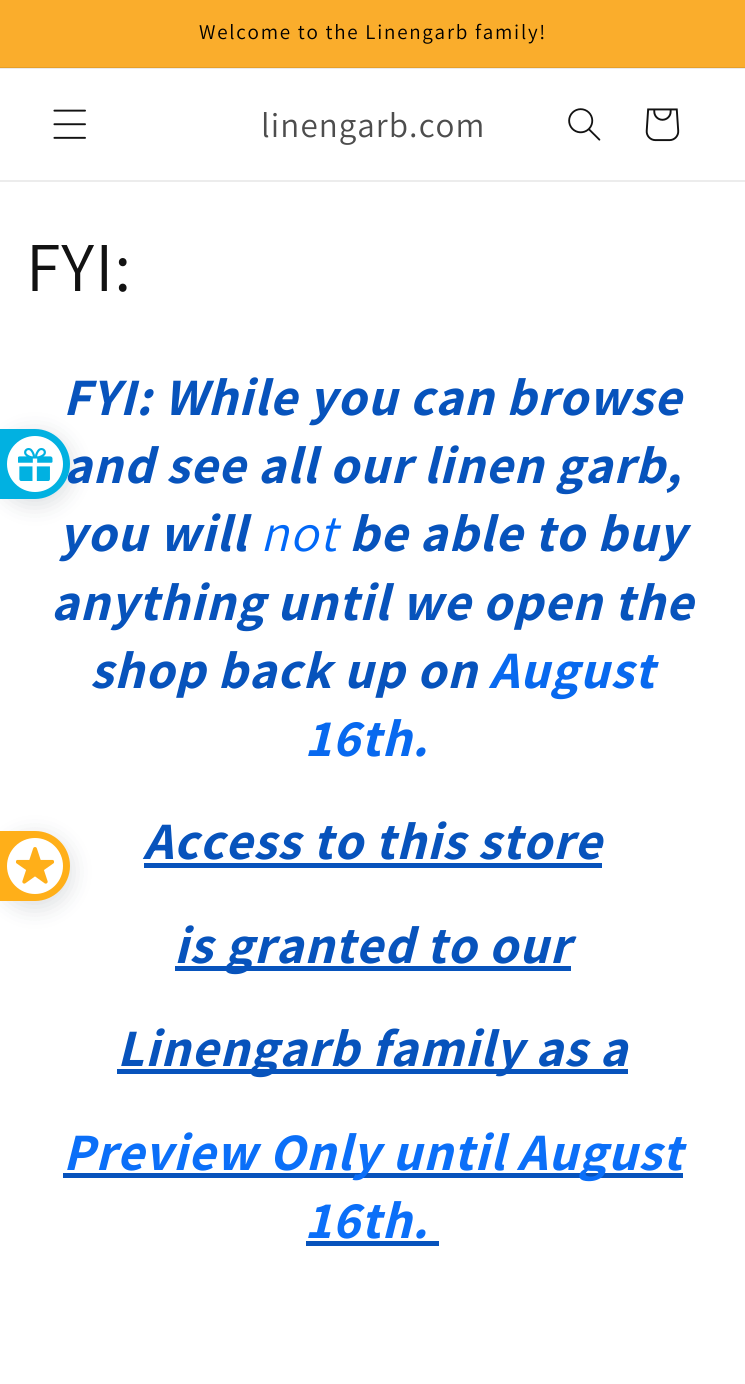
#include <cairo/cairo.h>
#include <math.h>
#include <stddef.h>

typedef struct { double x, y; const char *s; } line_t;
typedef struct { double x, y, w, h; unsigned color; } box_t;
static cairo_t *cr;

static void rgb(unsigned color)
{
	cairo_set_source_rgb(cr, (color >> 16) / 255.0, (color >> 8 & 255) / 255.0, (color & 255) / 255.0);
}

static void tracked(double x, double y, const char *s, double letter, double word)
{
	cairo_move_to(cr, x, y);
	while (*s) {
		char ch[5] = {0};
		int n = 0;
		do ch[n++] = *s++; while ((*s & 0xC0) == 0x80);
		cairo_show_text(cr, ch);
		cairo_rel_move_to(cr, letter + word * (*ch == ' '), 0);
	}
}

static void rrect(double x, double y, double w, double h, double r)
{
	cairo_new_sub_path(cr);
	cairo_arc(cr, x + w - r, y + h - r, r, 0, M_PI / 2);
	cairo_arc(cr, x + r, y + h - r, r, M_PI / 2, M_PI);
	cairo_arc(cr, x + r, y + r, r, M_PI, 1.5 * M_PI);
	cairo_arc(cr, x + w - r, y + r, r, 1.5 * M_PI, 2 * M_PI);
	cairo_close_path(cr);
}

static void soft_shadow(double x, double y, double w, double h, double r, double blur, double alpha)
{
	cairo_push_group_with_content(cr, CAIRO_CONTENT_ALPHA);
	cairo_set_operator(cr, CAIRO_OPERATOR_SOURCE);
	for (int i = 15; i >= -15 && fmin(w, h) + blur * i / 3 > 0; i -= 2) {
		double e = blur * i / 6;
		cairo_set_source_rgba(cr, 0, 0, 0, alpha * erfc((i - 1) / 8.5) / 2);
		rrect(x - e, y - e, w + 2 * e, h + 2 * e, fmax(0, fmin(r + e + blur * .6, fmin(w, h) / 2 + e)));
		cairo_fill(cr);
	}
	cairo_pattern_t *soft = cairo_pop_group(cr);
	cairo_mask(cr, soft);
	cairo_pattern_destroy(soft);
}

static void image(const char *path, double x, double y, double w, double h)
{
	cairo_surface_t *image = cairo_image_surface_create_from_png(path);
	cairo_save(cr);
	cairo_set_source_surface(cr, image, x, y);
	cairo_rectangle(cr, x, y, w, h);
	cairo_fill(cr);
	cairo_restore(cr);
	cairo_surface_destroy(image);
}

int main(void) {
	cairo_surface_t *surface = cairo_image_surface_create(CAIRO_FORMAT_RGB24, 745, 1384);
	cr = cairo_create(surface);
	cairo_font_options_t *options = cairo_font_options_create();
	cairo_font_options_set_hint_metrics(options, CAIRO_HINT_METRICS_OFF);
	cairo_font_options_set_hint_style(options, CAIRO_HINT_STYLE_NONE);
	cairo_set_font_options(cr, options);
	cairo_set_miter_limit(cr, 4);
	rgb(0xffffff);
	cairo_paint(cr);
	{
		static const box_t items[] = {
			{0, 68, 745, 1, 0xebebeb},
			{0, 0, 745, 67, 0xfaad2c},
			{0, 67, 745, 1, 0xe69f28},
			{0, 180, 745, 2, 0xececec},
		};
		for (size_t i = 0; i < sizeof items / sizeof *items; i++) {
			rgb(items[i].color);
			cairo_rectangle(cr, items[i].x, items[i].y, items[i].w, items[i].h);
			cairo_fill(cr);
		}
	}
	image("img/1.png", 53, 109, 33, 30);
	image("img/2.png", 568, 108, 33, 33);
	image("img/3.png", 645, 108, 35, 34);
	{
		static const box_t items[] = {
			{144, 863, 458, 5, 0x0753bc},
			{175, 966, 396, 5, 0x0753bc},
			{117, 1069, 511, 5, 0x0753bc},
			{63, 1173, 620, 5, 0x0753bc},
			{306, 1241, 133, 5, 0x0753bc},
		};
		for (size_t i = 0; i < sizeof items / sizeof *items; i++) {
			rgb(items[i].color);
			cairo_rectangle(cr, items[i].x, items[i].y, items[i].w, items[i].h);
			cairo_fill(cr);
		}
	}
	rgb(0x112233);
	soft_shadow(0, 434, 70, 70, 35, 12, 0.16);
	soft_shadow(0, 837, 70, 70, 35, 12, 0.16);
	rgb(0xffaf19);
	cairo_new_path(cr);
	cairo_move_to(cr, 70, 866);
	cairo_curve_to(cr, 70, 885, 54, 901, 35, 901);
	cairo_line_to(cr, 0, 901);
	cairo_line_to(cr, 0, 831);
	cairo_line_to(cr, 35, 831);
	cairo_curve_to(cr, 54, 831, 70, 846, 70, 866);
	cairo_close_path(cr);
	cairo_fill(cr);
	rgb(0xffffff);
	cairo_arc(cr, 35, 866, 28, 0, 2 * M_PI);
	cairo_fill(cr);
	image("img/5.png", 16, 847, 38, 37);
	cairo_select_font_face(cr, "Assistant", CAIRO_FONT_SLANT_NORMAL, CAIRO_FONT_WEIGHT_NORMAL);
	cairo_set_font_size(cr, 21);
	rgb(0x000000);
	tracked(199, 39, "Welcome to the Linengarb family!", 1.75, 0);
	cairo_set_font_size(cr, 35);
	rgb(0x4d4d4d);
	tracked(261, 137, "linengarb.com", 1.05, 0);
	cairo_set_font_size(cr, 70);
	rgb(0x121212);
	tracked(26, 291, "FYI:", 1.05, 0);
	cairo_select_font_face(cr, "Assistant", CAIRO_FONT_SLANT_ITALIC, CAIRO_FONT_WEIGHT_BOLD);
	cairo_set_font_size(cr, 52.5);
	rgb(0x0753bc);
	{
		static const line_t items[] = {
			{63, 415, "FYI: While you can browse"},
			{64, 483, "and see all our linen garb,"},
			{59, 551, "you will"},
		};
		for (size_t i = 0; i < sizeof items / sizeof *items; i++) {
			tracked(items[i].x, items[i].y, items[i].s, 1.05, 0);
		}
	}
	cairo_select_font_face(cr, "Assistant", CAIRO_FONT_SLANT_ITALIC, CAIRO_FONT_WEIGHT_NORMAL);
	rgb(0x0168f7);
	tracked(260, 551, "not", 1.05, 0);
	cairo_select_font_face(cr, "Assistant", CAIRO_FONT_SLANT_ITALIC, CAIRO_FONT_WEIGHT_BOLD);
	rgb(0x0753bc);
	{
		static const line_t items[] = {
			{349, 551, "be able to buy"},
			{51, 620, "anything until we open the"},
			{90, 688, "shop back up on"},
		};
		for (size_t i = 0; i < sizeof items / sizeof *items; i++) {
			tracked(items[i].x, items[i].y, items[i].s, 1.05, 0);
		}
	}
	rgb(0x0869ef);
	tracked(489, 688, "August", 1.05, 0);
	tracked(306, 756, "16th.", 1.05, 0);
	rgb(0x0753bc);
	{
		static const line_t items[] = {
			{143, 859, "Access to this store"},
			{174, 963, "is granted to our"},
			{117, 1066, "Linengarb family as a"},
		};
		for (size_t i = 0; i < sizeof items / sizeof *items; i++) {
			tracked(items[i].x, items[i].y, items[i].s, 1.05, 0);
		}
	}
	rgb(0x0b6ff8);
	tracked(63, 1170, "Preview Only until August", 1.05, 0);
	tracked(306, 1238, "16th.", 1.05, 0);
	rgb(0x01b1e1);
	cairo_new_path(cr);
	cairo_move_to(cr, 70, 464);
	cairo_curve_to(cr, 70, 483, 54, 499, 35, 499);
	cairo_line_to(cr, 0, 499);
	cairo_line_to(cr, 0, 429);
	cairo_line_to(cr, 35, 429);
	cairo_curve_to(cr, 54, 429, 70, 445, 70, 464);
	cairo_close_path(cr);
	cairo_fill(cr);
	rgb(0xffffff);
	cairo_arc(cr, 35, 464, 28, 0, 2 * M_PI);
	cairo_fill(cr);
	image("img/4.png", 18, 448, 35, 33);
	cairo_surface_write_to_png(surface, "page.png");
	cairo_font_options_destroy(options);
	cairo_destroy(cr);
	cairo_surface_destroy(surface);
	return 0;
}
